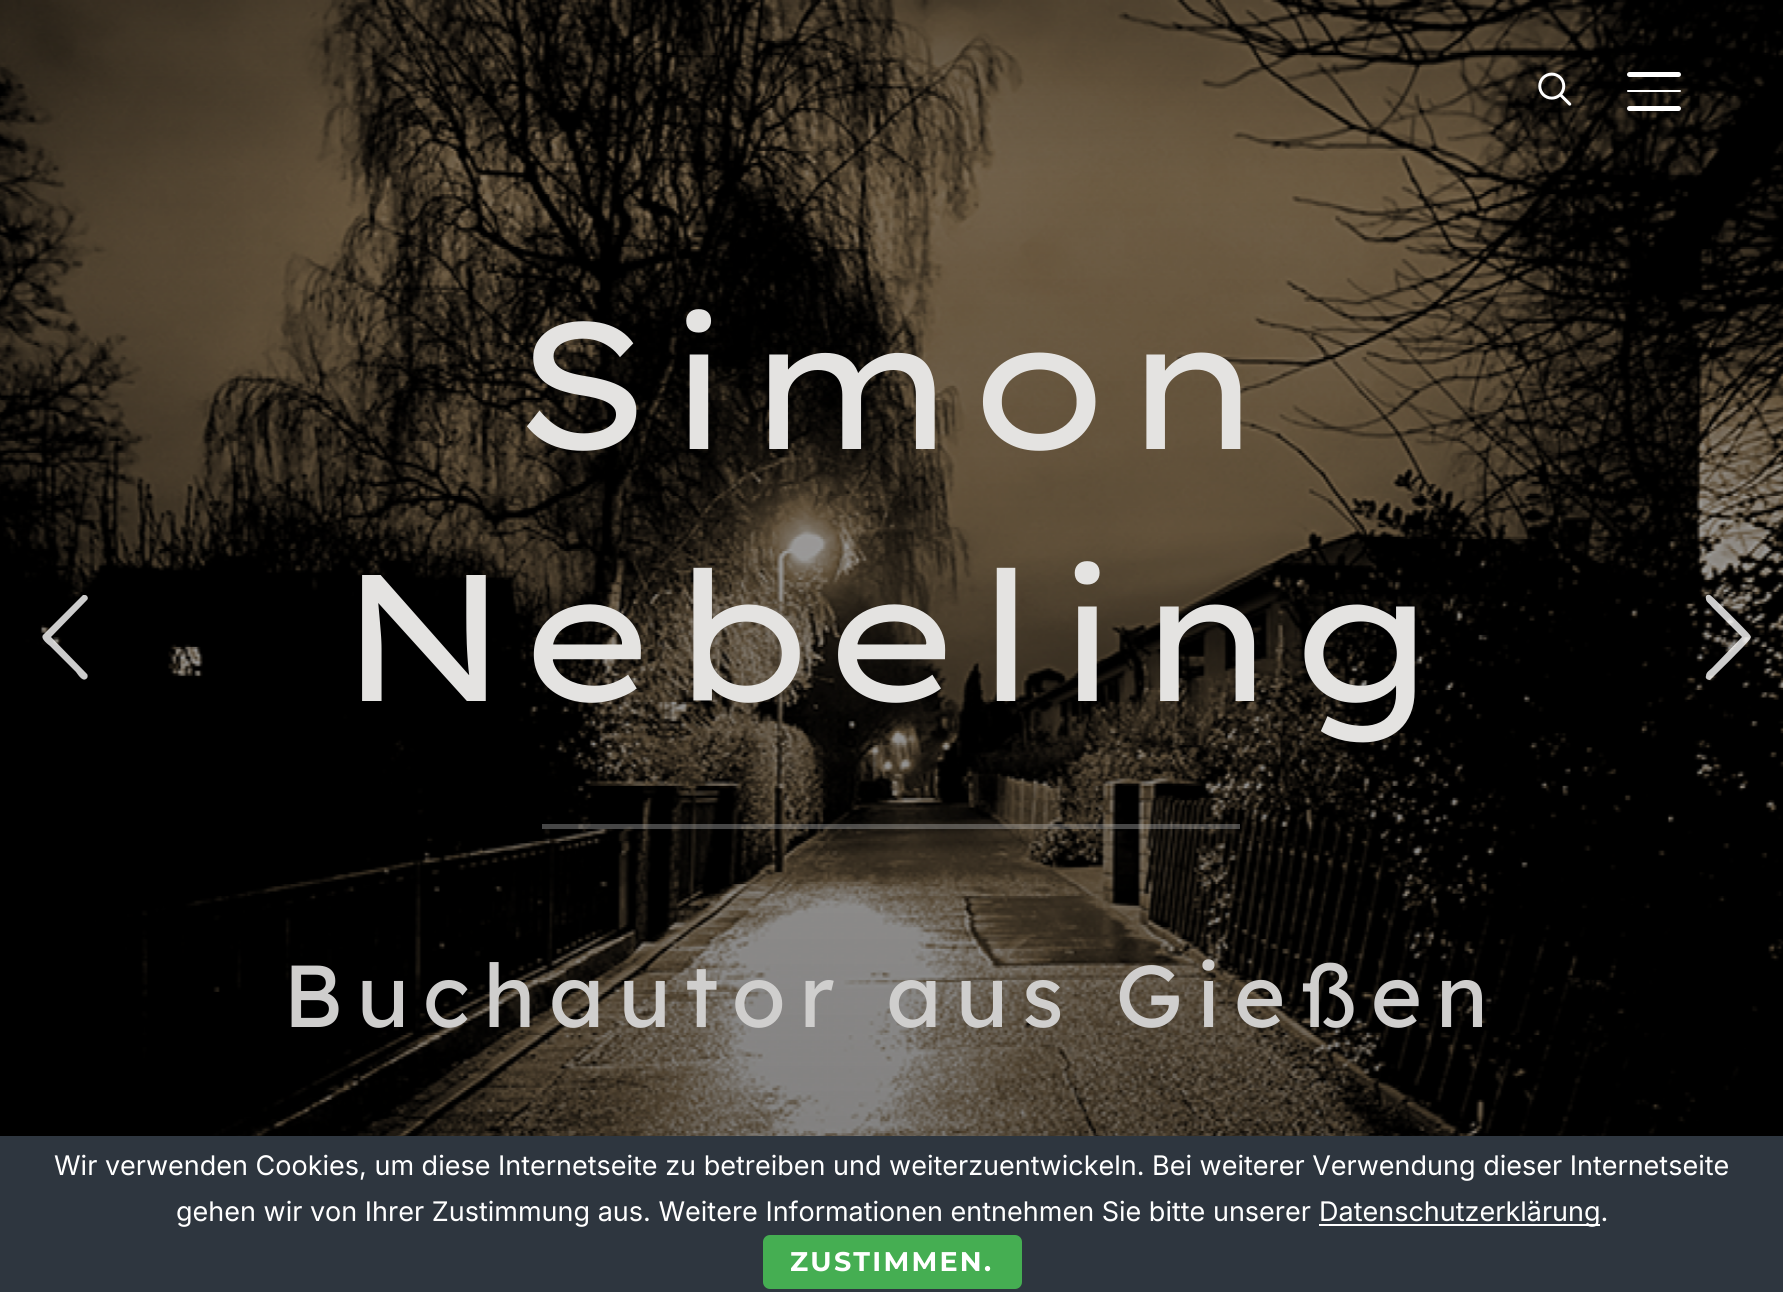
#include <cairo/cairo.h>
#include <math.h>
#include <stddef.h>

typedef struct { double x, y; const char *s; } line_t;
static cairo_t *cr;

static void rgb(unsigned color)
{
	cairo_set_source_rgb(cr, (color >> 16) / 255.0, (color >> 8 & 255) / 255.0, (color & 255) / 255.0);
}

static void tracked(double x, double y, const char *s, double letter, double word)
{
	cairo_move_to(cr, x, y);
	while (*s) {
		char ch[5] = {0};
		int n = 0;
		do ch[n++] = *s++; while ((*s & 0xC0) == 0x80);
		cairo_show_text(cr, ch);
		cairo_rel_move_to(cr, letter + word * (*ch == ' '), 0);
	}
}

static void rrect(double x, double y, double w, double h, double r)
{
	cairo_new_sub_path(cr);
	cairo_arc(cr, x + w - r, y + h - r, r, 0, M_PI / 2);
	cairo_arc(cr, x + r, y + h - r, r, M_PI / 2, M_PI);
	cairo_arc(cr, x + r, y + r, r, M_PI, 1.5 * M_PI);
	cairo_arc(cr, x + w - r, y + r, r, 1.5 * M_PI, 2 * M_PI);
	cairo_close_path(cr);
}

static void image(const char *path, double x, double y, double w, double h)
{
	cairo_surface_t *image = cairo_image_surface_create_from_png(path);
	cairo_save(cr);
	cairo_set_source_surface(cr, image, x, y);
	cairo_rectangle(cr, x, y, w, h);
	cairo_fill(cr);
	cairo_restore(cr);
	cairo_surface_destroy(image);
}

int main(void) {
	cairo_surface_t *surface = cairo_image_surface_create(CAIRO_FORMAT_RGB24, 1783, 1292);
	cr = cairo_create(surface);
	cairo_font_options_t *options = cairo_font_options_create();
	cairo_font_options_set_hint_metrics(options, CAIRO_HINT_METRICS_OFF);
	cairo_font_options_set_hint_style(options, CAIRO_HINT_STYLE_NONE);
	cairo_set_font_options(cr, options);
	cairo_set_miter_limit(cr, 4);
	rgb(0xffffff);
	cairo_paint(cr);
	image("img/2.png", 0, 0, 1783, 1136);
	image("img/1.png", 1538, 72, 34, 34);
	rgb(0xffffff);
	rrect(1627, 72, 54, 5, 2.5);
	cairo_fill(cr);
	rrect(1627, 90, 54, 2, 1);
	cairo_fill(cr);
	rrect(1627, 106, 54, 5, 2.5);
	cairo_fill(cr);
	cairo_set_source_rgba(cr, 0.788, 0.788, 0.788, 0.35);
	cairo_rectangle(cr, 542, 824, 698, 5);
	cairo_fill(cr);
	cairo_set_source_rgba(cr, 1, 1, 1, 0.8);
	cairo_new_path(cr);
	cairo_move_to(cr, 87, 674);
	cairo_curve_to(cr, 88, 675, 88, 678, 86, 679);
	cairo_curve_to(cr, 82, 682, 77, 673, 76, 672);
	cairo_line_to(cr, 50, 646);
	cairo_curve_to(cr, 49, 645, 40, 639, 43, 635);
	cairo_line_to(cr, 83, 595);
	cairo_line_to(cr, 85, 595);
	cairo_curve_to(cr, 87, 595, 89, 598, 87, 600);
	cairo_line_to(cr, 51, 637);
	cairo_close_path(cr);
	cairo_fill(cr);
	cairo_new_path(cr);
	cairo_move_to(cr, 1742, 637);
	cairo_line_to(cr, 1712, 607);
	cairo_curve_to(cr, 1710, 604, 1706, 602, 1706, 599);
	cairo_curve_to(cr, 1705, 596, 1707, 594, 1710, 595);
	cairo_curve_to(cr, 1711, 595, 1748, 632, 1750, 635);
	cairo_line_to(cr, 1751, 637);
	cairo_line_to(cr, 1750, 639);
	cairo_curve_to(cr, 1748, 643, 1711, 679, 1710, 680);
	cairo_curve_to(cr, 1707, 680, 1705, 678, 1706, 676);
	cairo_curve_to(cr, 1706, 672, 1710, 670, 1712, 668);
	cairo_close_path(cr);
	cairo_fill(cr);
	rgb(0x2e363f);
	cairo_rectangle(cr, 0, 1136, 1783, 156);
	cairo_fill(cr);
	rgb(0xffffff);
	cairo_rectangle(cr, 1319, 1224, 281, 2);
	cairo_fill(cr);
	rgb(0x45ae52);
	rrect(763, 1235, 259, 54, 7);
	cairo_fill(cr);
	cairo_select_font_face(cr, "Lexend Giga", CAIRO_FONT_SLANT_NORMAL, CAIRO_FONT_WEIGHT_NORMAL);
	cairo_set_font_size(cr, 180);
	rgb(0xe4e3e1);
	tracked(510, 449, "Simon", 6.75, 0);
	tracked(336, 701, "Nebeling", 6.75, 0);
	cairo_select_font_face(cr, "Lexend Deca", CAIRO_FONT_SLANT_NORMAL, CAIRO_FONT_WEIGHT_NORMAL);
	cairo_set_font_size(cr, 87.75);
	rgb(0xcfcecd);
	tracked(283, 1027, "Buchautor aus Gießen", 13.5, 0);
	cairo_select_font_face(cr, "Inter", CAIRO_FONT_SLANT_NORMAL, CAIRO_FONT_WEIGHT_NORMAL);
	cairo_set_font_size(cr, 27);
	rgb(0xffffff);
	{
		static const line_t items[] = {
			{54, 1175, "Wir verwenden Cookies, um diese Internetseite zu betreiben und weiterzuentwickeln. Bei weiterer Verwendung dieser Internetseite"},
			{176, 1221, "gehen wir von Ihrer Zustimmung aus. Weitere Informationen entnehmen Sie bitte unserer"},
			{1319, 1221, "Datenschutzerklärung."},
		};
		for (size_t i = 0; i < sizeof items / sizeof *items; i++) {
			cairo_move_to(cr, items[i].x, items[i].y);
			cairo_show_text(cr, items[i].s);
		}
	}
	cairo_select_font_face(cr, "Montserrat", CAIRO_FONT_SLANT_NORMAL, CAIRO_FONT_WEIGHT_BOLD);
	tracked(790, 1271, "ZUSTIMMEN.", 2.25, 0);
	cairo_surface_write_to_png(surface, "page.png");
	cairo_font_options_destroy(options);
	cairo_destroy(cr);
	cairo_surface_destroy(surface);
	return 0;
}
